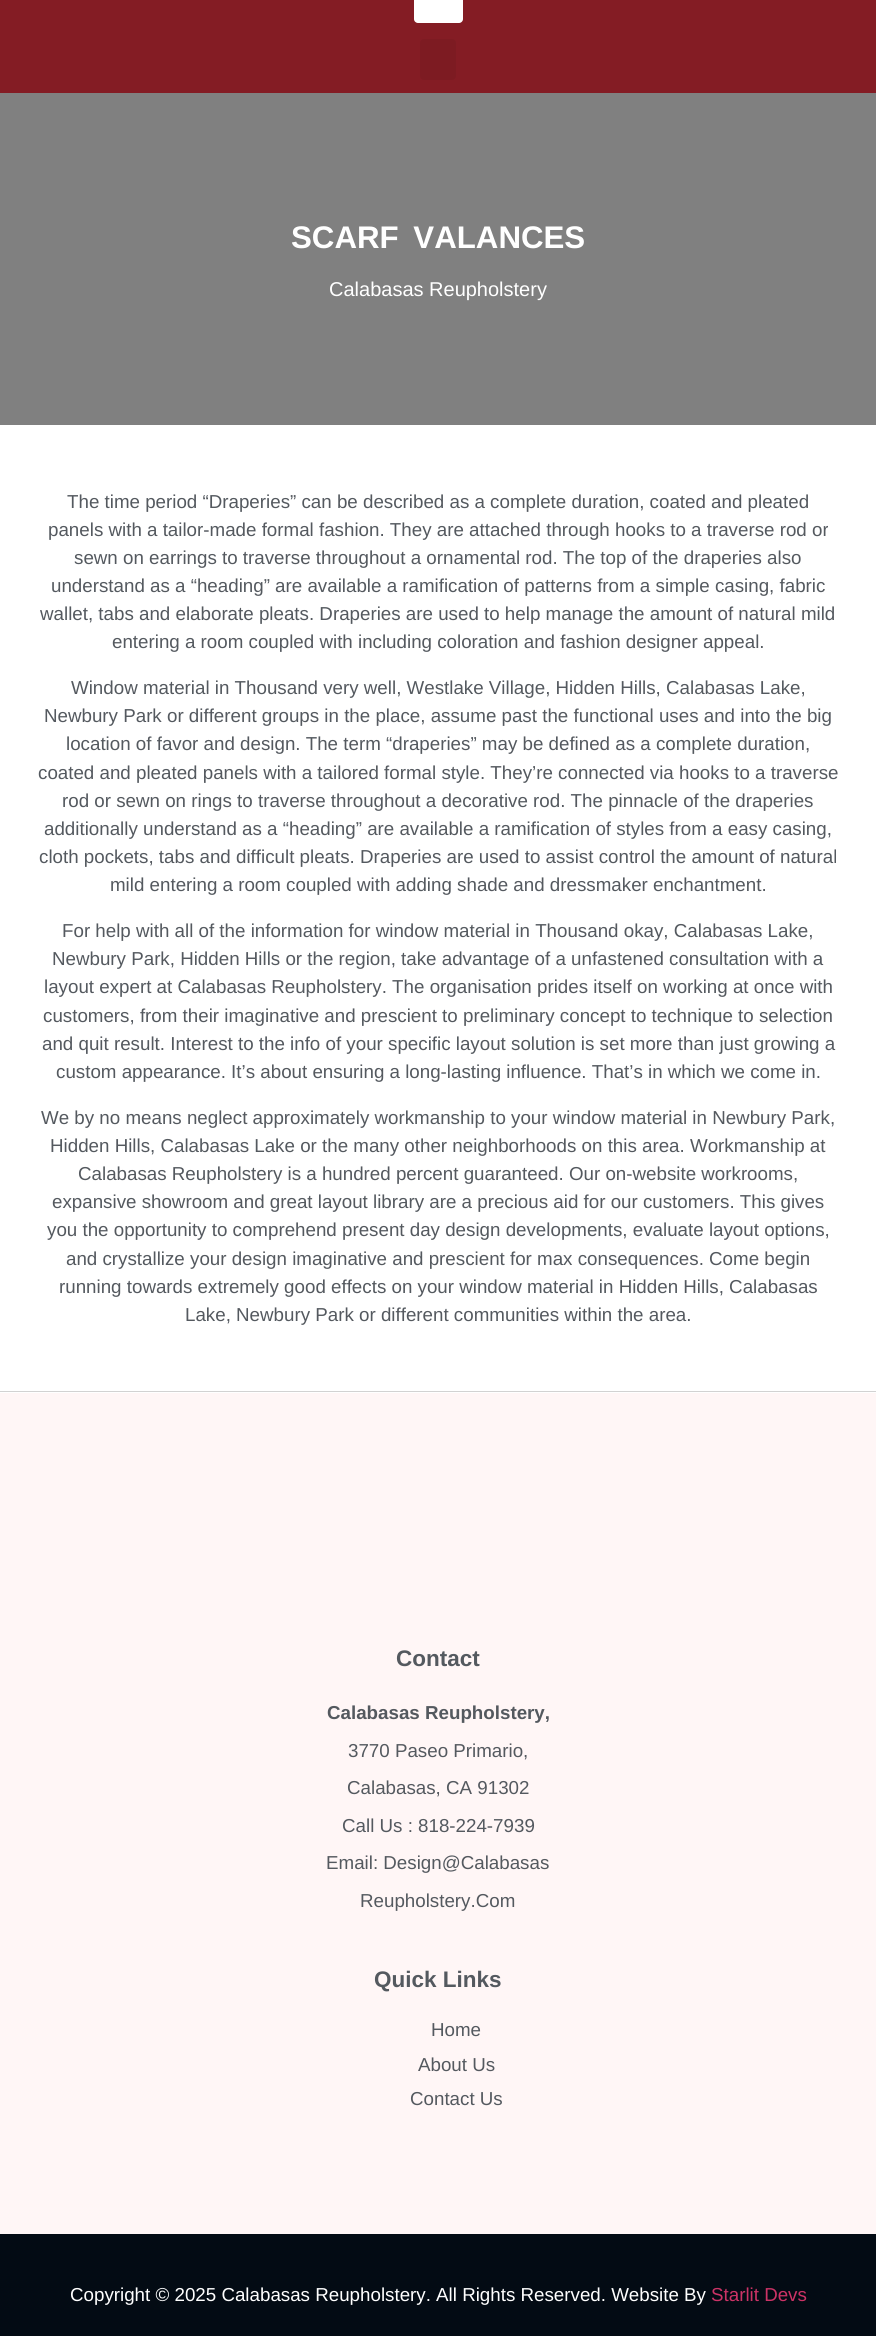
#include <cairo/cairo.h>
#include <math.h>
#include <stddef.h>

typedef struct { double x, y; const char *s; } line_t;
typedef struct { double x, y, w, h; unsigned color; } box_t;
static cairo_t *cr;

static void rgb(unsigned color)
{
	cairo_set_source_rgb(cr, (color >> 16) / 255.0, (color >> 8 & 255) / 255.0, (color & 255) / 255.0);
}

static void tracked(double x, double y, const char *s, double letter, double word)
{
	cairo_move_to(cr, x, y);
	while (*s) {
		char ch[5] = {0};
		int n = 0;
		do ch[n++] = *s++; while ((*s & 0xC0) == 0x80);
		cairo_show_text(cr, ch);
		cairo_rel_move_to(cr, letter + word * (*ch == ' '), 0);
	}
}

static void rrect(double x, double y, double w, double h, double r)
{
	cairo_new_sub_path(cr);
	cairo_arc(cr, x + w - r, y + h - r, r, 0, M_PI / 2);
	cairo_arc(cr, x + r, y + h - r, r, M_PI / 2, M_PI);
	cairo_arc(cr, x + r, y + r, r, M_PI, 1.5 * M_PI);
	cairo_arc(cr, x + w - r, y + r, r, 1.5 * M_PI, 2 * M_PI);
	cairo_close_path(cr);
}

int main(void) {
	cairo_surface_t *surface = cairo_image_surface_create(CAIRO_FORMAT_RGB24, 876, 2336);
	cr = cairo_create(surface);
	cairo_font_options_t *options = cairo_font_options_create();
	cairo_font_options_set_hint_metrics(options, CAIRO_HINT_METRICS_OFF);
	cairo_font_options_set_hint_style(options, CAIRO_HINT_STYLE_NONE);
	cairo_set_font_options(cr, options);
	cairo_set_miter_limit(cr, 4);
	rgb(0xffffff);
	cairo_paint(cr);
	rgb(0x841c24);
	cairo_rectangle(cr, 0, 0, 876, 93);
	cairo_fill(cr);
	rgb(0xffffff);
	rrect(414, -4, 49, 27, 4);
	cairo_fill(cr);
	rgb(0x7d1b22);
	rrect(420, 39, 36, 41, 4);
	cairo_fill(cr);
	{
		static const box_t items[] = {
			{0, 93, 876, 332, 0x808080},
			{0, 1393, 876, 841, 0xfff6f6},
			{0, 1391, 876, 1, 0xd2d2d2},
			{0, 2234, 876, 102, 0x030b14},
		};
		for (size_t i = 0; i < sizeof items / sizeof *items; i++) {
			rgb(items[i].color);
			cairo_rectangle(cr, items[i].x, items[i].y, items[i].w, items[i].h);
			cairo_fill(cr);
		}
	}
	cairo_select_font_face(cr, "Liberation Sans", CAIRO_FONT_SLANT_NORMAL, CAIRO_FONT_WEIGHT_BOLD);
	cairo_set_font_size(cr, 31.25);
	rgb(0xffffff);
	tracked(291, 248, "SCARF VALANCES", 0, 6);
	cairo_select_font_face(cr, "Liberation Sans", CAIRO_FONT_SLANT_NORMAL, CAIRO_FONT_WEIGHT_NORMAL);
	cairo_set_font_size(cr, 20);
	cairo_move_to(cr, 329, 296);
	cairo_show_text(cr, "Calabasas Reupholstery");
	cairo_set_font_size(cr, 18.75);
	rgb(0x54595f);
	{
		static const line_t items[] = {
			{67, 508, "The time period “Draperies” can be described as a complete duration, coated and pleated"},
			{48, 536, "panels with a tailor-made formal fashion. They are attached through hooks to a traverse rod or"},
			{74, 564, "sewn on earrings to traverse throughout a ornamental rod. The top of the draperies also"},
			{51, 592, "understand as a “heading” are available a ramification of patterns from a simple casing, fabric"},
			{40, 620, "wallet, tabs and elaborate pleats. Draperies are used to help manage the amount of natural mild"},
			{112, 648, "entering a room coupled with including coloration and fashion designer appeal."},
			{71, 694, "Window material in Thousand very well, Westlake Village, Hidden Hills, Calabasas Lake,"},
			{44, 722, "Newbury Park or different groups in the place, assume past the functional uses and into the big"},
			{66, 750, "location of favor and design. The term “draperies” may be defined as a complete duration,"},
			{38, 779, "coated and pleated panels with a tailored formal style. They’re connected via hooks to a traverse"},
			{62, 807, "rod or sewn on rings to traverse throughout a decorative rod. The pinnacle of the draperies"},
			{44, 835, "additionally understand as a “heading” are available a ramification of styles from a easy casing,"},
			{39, 863, "cloth pockets, tabs and difficult pleats. Draperies are used to assist control the amount of natural"},
			{110, 891, "mild entering a room coupled with adding shade and dressmaker enchantment."},
			{62, 937, "For help with all of the information for window material in Thousand okay, Calabasas Lake,"},
			{52, 965, "Newbury Park, Hidden Hills or the region, take advantage of a unfastened consultation with a"},
			{44, 993, "layout expert at Calabasas Reupholstery. The organisation prides itself on working at once with"},
			{43, 1022, "customers, from their imaginative and prescient to preliminary concept to technique to selection"},
			{42, 1050, "and quit result. Interest to the info of your specific layout solution is set more than just growing a"},
			{56, 1078, "custom appearance. It’s about ensuring a long-lasting influence. That’s in which we come in."},
			{41, 1124, "We by no means neglect approximately workmanship to your window material in Newbury Park,"},
			{50, 1152, "Hidden Hills, Calabasas Lake or the many other neighborhoods on this area. Workmanship at"},
			{78, 1180, "Calabasas Reupholstery is a hundred percent guaranteed. Our on-website workrooms,"},
			{52, 1208, "expansive showroom and great layout library are a precious aid for our customers. This gives"},
			{47, 1236, "you the opportunity to comprehend present day design developments, evaluate layout options,"},
			{66, 1265, "and crystallize your design imaginative and prescient for max consequences. Come begin"},
			{59, 1293, "running towards extremely good effects on your window material in Hidden Hills, Calabasas"},
			{185, 1321, "Lake, Newbury Park or different communities within the area."},
		};
		for (size_t i = 0; i < sizeof items / sizeof *items; i++) {
			cairo_move_to(cr, items[i].x, items[i].y);
			cairo_show_text(cr, items[i].s);
		}
	}
	cairo_select_font_face(cr, "Liberation Sans", CAIRO_FONT_SLANT_NORMAL, CAIRO_FONT_WEIGHT_BOLD);
	cairo_set_font_size(cr, 22.5);
	cairo_move_to(cr, 396, 1666);
	cairo_show_text(cr, "Contact");
	cairo_set_font_size(cr, 18.75);
	cairo_move_to(cr, 327, 1719);
	cairo_show_text(cr, "Calabasas Reupholstery,");
	cairo_select_font_face(cr, "Liberation Sans", CAIRO_FONT_SLANT_NORMAL, CAIRO_FONT_WEIGHT_NORMAL);
	{
		static const line_t items[] = {
			{348, 1757, "3770 Paseo Primario,"},
			{347, 1794, "Calabasas, CA 91302"},
			{342, 1832, "Call Us : 818-224-7939"},
			{326, 1869, "Email: Design@Calabasas"},
			{360, 1907, "Reupholstery.Com"},
		};
		for (size_t i = 0; i < sizeof items / sizeof *items; i++) {
			cairo_move_to(cr, items[i].x, items[i].y);
			cairo_show_text(cr, items[i].s);
		}
	}
	cairo_select_font_face(cr, "Liberation Sans", CAIRO_FONT_SLANT_NORMAL, CAIRO_FONT_WEIGHT_BOLD);
	cairo_set_font_size(cr, 22.5);
	cairo_move_to(cr, 374, 1987);
	cairo_show_text(cr, "Quick Links");
	cairo_select_font_face(cr, "Liberation Sans", CAIRO_FONT_SLANT_NORMAL, CAIRO_FONT_WEIGHT_NORMAL);
	cairo_set_font_size(cr, 18.75);
	{
		static const line_t items[] = {
			{431, 2036, "Home"},
			{418, 2071, "About Us"},
			{410, 2105, "Contact Us"},
		};
		for (size_t i = 0; i < sizeof items / sizeof *items; i++) {
			cairo_move_to(cr, items[i].x, items[i].y);
			cairo_show_text(cr, items[i].s);
		}
	}
	rgb(0xffffff);
	cairo_move_to(cr, 70, 2301);
	cairo_show_text(cr, "Copyright © 2025 Calabasas Reupholstery. All Rights Reserved. Website By");
	rgb(0xcc3366);
	cairo_move_to(cr, 711, 2301);
	cairo_show_text(cr, "Starlit Devs");
	cairo_surface_write_to_png(surface, "page.png");
	cairo_font_options_destroy(options);
	cairo_destroy(cr);
	cairo_surface_destroy(surface);
	return 0;
}
